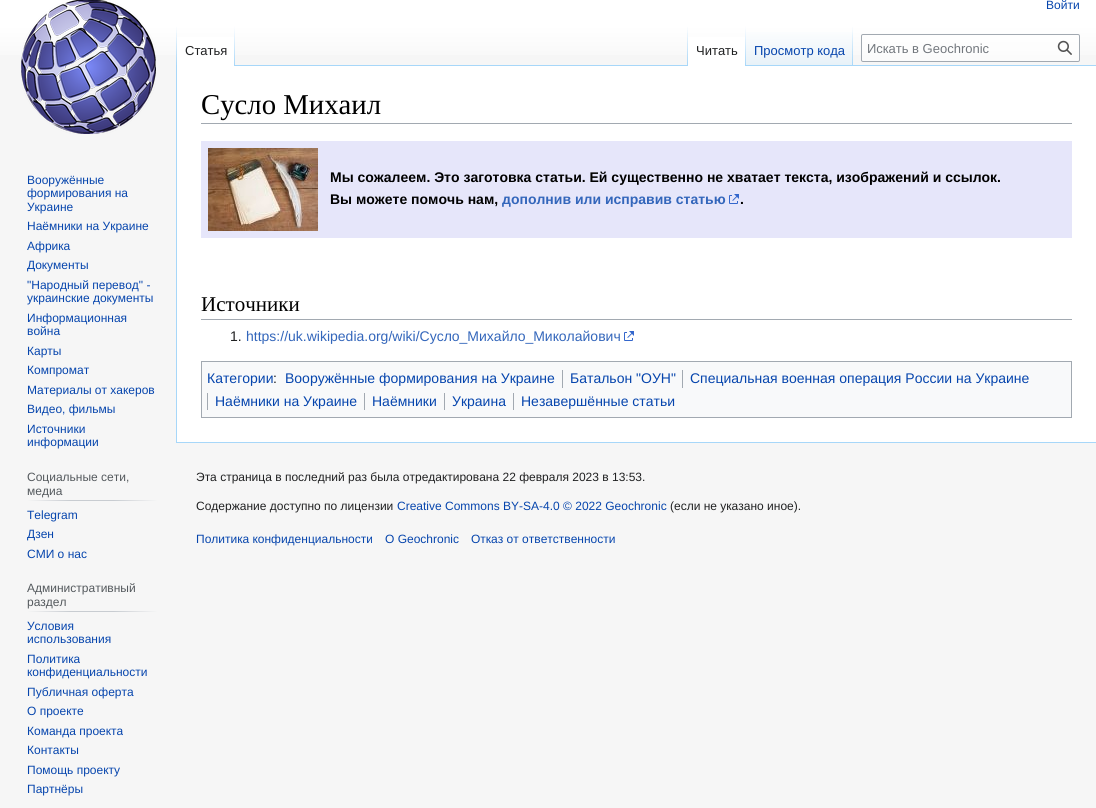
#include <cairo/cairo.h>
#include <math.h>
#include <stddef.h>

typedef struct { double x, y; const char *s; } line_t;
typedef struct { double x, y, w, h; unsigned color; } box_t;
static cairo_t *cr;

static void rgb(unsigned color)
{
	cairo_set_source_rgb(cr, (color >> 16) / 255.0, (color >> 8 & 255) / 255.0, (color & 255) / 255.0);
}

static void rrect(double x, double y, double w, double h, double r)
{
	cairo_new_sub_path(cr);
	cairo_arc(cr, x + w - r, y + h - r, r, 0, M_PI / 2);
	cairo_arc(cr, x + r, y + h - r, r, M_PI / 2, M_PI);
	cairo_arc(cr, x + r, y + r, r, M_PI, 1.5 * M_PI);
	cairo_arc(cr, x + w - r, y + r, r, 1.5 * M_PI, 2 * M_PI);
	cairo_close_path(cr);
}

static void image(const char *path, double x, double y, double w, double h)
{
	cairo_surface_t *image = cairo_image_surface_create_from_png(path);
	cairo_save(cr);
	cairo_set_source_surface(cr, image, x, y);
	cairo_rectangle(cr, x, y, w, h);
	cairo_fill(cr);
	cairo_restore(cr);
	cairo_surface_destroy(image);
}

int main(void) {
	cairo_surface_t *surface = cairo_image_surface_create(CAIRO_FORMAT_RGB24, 1096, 808);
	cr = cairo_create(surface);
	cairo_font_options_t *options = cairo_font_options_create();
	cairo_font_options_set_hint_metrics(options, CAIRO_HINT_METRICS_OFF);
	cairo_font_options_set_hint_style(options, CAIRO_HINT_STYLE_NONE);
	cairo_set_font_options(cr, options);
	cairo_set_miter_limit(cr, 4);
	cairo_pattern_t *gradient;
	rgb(0xf6f6f6);
	cairo_paint(cr);
	gradient = cairo_pattern_create_linear(548, -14, 548, 66);
	cairo_pattern_add_color_stop_rgba(gradient, 0.5, 1, 1, 1, 1);
	cairo_pattern_add_color_stop_rgba(gradient, 1, 0.965, 0.965, 0.965, 1);
	cairo_set_source(cr, gradient);
	cairo_pattern_destroy(gradient);
	cairo_rectangle(cr, 0, 0, 1096, 55);
	cairo_fill(cr);
	rgb(0xa7d7f9);
	cairo_rectangle(cr, 176, 442, 920, 1);
	cairo_fill(cr);
	cairo_rectangle(cr, 176, 65, 1, 378);
	cairo_fill(cr);
	gradient = cairo_pattern_create_linear(177, 26, 177, 66);
	cairo_pattern_add_color_stop_rgba(gradient, 0, 0.655, 0.843, 0.976, 0);
	cairo_pattern_add_color_stop_rgba(gradient, 1, 0.655, 0.843, 0.976, 1);
	cairo_set_source(cr, gradient);
	cairo_pattern_destroy(gradient);
	cairo_rectangle(cr, 176, 26, 1, 40);
	cairo_fill(cr);
	rgb(0xffffff);
	cairo_rectangle(cr, 177, 37, 57, 29);
	cairo_fill(cr);
	gradient = cairo_pattern_create_linear(235, 26, 235, 66);
	cairo_pattern_add_color_stop_rgba(gradient, 0, 1, 1, 1, 1);
	cairo_pattern_add_color_stop_rgba(gradient, 1, 0.655, 0.843, 0.976, 1);
	cairo_set_source(cr, gradient);
	cairo_pattern_destroy(gradient);
	cairo_rectangle(cr, 234, 26, 1, 40);
	cairo_fill(cr);
	rgb(0xa7d7f9);
	cairo_rectangle(cr, 235, 65, 861, 1);
	cairo_fill(cr);
	gradient = cairo_pattern_create_linear(688, 26, 688, 66);
	cairo_pattern_add_color_stop_rgba(gradient, 0, 0.655, 0.843, 0.976, 0);
	cairo_pattern_add_color_stop_rgba(gradient, 1, 0.655, 0.843, 0.976, 1);
	cairo_set_source(cr, gradient);
	cairo_pattern_destroy(gradient);
	cairo_rectangle(cr, 687, 26, 1, 40);
	cairo_fill(cr);
	rgb(0xffffff);
	cairo_rectangle(cr, 688, 37, 57, 29);
	cairo_fill(cr);
	gradient = cairo_pattern_create_linear(746, 26, 746, 66);
	cairo_pattern_add_color_stop_rgba(gradient, 0, 1, 1, 1, 1);
	cairo_pattern_add_color_stop_rgba(gradient, 1, 0.655, 0.843, 0.976, 1);
	cairo_set_source(cr, gradient);
	cairo_pattern_destroy(gradient);
	cairo_rectangle(cr, 745, 26, 1, 40);
	cairo_fill(cr);
	gradient = cairo_pattern_create_linear(800, 66, 800, 26);
	cairo_pattern_add_color_stop_rgba(gradient, 0, 0.467, 0.757, 0.965, 1);
	cairo_pattern_add_color_stop_rgba(gradient, 0.03, 0.91, 0.949, 0.973, 1);
	cairo_pattern_add_color_stop_rgba(gradient, 1, 1, 1, 1, 1);
	cairo_set_source(cr, gradient);
	cairo_pattern_destroy(gradient);
	cairo_rectangle(cr, 746, 32, 107, 33);
	cairo_fill(cr);
	gradient = cairo_pattern_create_linear(853, 26, 853, 66);
	cairo_pattern_add_color_stop_rgba(gradient, 0, 0.655, 0.843, 0.976, 0);
	cairo_pattern_add_color_stop_rgba(gradient, 1, 0.655, 0.843, 0.976, 1);
	cairo_set_source(cr, gradient);
	cairo_pattern_destroy(gradient);
	cairo_rectangle(cr, 852, 26, 1, 40);
	cairo_fill(cr);
	cairo_set_source_rgba(cr, 1, 1, 1, 0.5);
	rrect(861.5, 34.5, 218, 27, 1.5);
	cairo_fill_preserve(cr);
	rgb(0xa2a9b1);
	cairo_set_line_width(cr, 1);
	cairo_stroke(cr);
	image("img/1.png", 1057, 40, 15, 15);
	image("img/2.png", 21, 0, 135, 134);
	gradient = cairo_pattern_create_linear(27, 501, 158, 501);
	cairo_pattern_add_color_stop_rgba(gradient, 0, 0.965, 0.965, 0.965, 1);
	cairo_pattern_add_color_stop_rgba(gradient, 0.33, 0.784, 0.8, 0.82, 1);
	cairo_pattern_add_color_stop_rgba(gradient, 0.66, 0.784, 0.8, 0.82, 1);
	cairo_pattern_add_color_stop_rgba(gradient, 1, 0.965, 0.965, 0.965, 1);
	cairo_set_source(cr, gradient);
	cairo_pattern_destroy(gradient);
	cairo_rectangle(cr, 27, 500, 131, 1);
	cairo_fill(cr);
	gradient = cairo_pattern_create_linear(27, 612, 158, 612);
	cairo_pattern_add_color_stop_rgba(gradient, 0, 0.965, 0.965, 0.965, 1);
	cairo_pattern_add_color_stop_rgba(gradient, 0.33, 0.784, 0.8, 0.82, 1);
	cairo_pattern_add_color_stop_rgba(gradient, 0.66, 0.784, 0.8, 0.82, 1);
	cairo_pattern_add_color_stop_rgba(gradient, 1, 0.965, 0.965, 0.965, 1);
	cairo_set_source(cr, gradient);
	cairo_pattern_destroy(gradient);
	cairo_rectangle(cr, 27, 611, 131, 1);
	cairo_fill(cr);
	{
		static const box_t items[] = {
			{177, 66, 919, 376, 0xffffff},
			{201, 123, 871, 1, 0xa2a9b1},
			{201, 141, 871, 97, 0xe6e6fa},
		};
		for (size_t i = 0; i < sizeof items / sizeof *items; i++) {
			rgb(items[i].color);
			cairo_rectangle(cr, items[i].x, items[i].y, items[i].w, items[i].h);
			cairo_fill(cr);
		}
	}
	image("img/3.png", 208, 148, 110, 83);
	image("img/4.png", 729, 194, 10, 10);
	rgb(0xa2a9b1);
	cairo_rectangle(cr, 201, 319, 871, 1);
	cairo_fill(cr);
	image("img/5.png", 624, 331, 10, 10);
	rgb(0xf8f9fa);
	cairo_rectangle(cr, 201.5, 361.5, 870, 56);
	cairo_fill_preserve(cr);
	rgb(0xa2a9b1);
	cairo_stroke(cr);
	{
		static const box_t items[] = {
			{562, 370, 1, 18, 0xa2a9b1},
			{682, 370, 1, 18, 0xa2a9b1},
			{207, 393, 1, 17, 0xa2a9b1},
			{364, 393, 1, 17, 0xa2a9b1},
			{444, 393, 1, 17, 0xa2a9b1},
			{513, 393, 1, 17, 0xa2a9b1},
		};
		for (size_t i = 0; i < sizeof items / sizeof *items; i++) {
			rgb(items[i].color);
			cairo_rectangle(cr, items[i].x, items[i].y, items[i].w, items[i].h);
			cairo_fill(cr);
		}
	}
	cairo_select_font_face(cr, "Liberation Sans", CAIRO_FONT_SLANT_NORMAL, CAIRO_FONT_WEIGHT_NORMAL);
	cairo_set_font_size(cr, 12);
	rgb(0x0645ad);
	cairo_move_to(cr, 1046, 9);
	cairo_show_text(cr, "Войти");
	cairo_set_font_size(cr, 13);
	rgb(0x202122);
	cairo_move_to(cr, 185, 55);
	cairo_show_text(cr, "Статья");
	cairo_move_to(cr, 696, 55);
	cairo_show_text(cr, "Читать");
	rgb(0x0645ad);
	cairo_move_to(cr, 754, 55);
	cairo_show_text(cr, "Просмотр кода");
	rgb(0x72777d);
	cairo_move_to(cr, 867, 53);
	cairo_show_text(cr, "Искать в Geochronic");
	cairo_set_font_size(cr, 12);
	rgb(0x0645ad);
	{
		static const line_t items[] = {
			{27, 184, "Вооружённые"},
			{27, 197, "формирования на"},
			{27, 211, "Украине"},
			{27, 230, "Наёмники на Украине"},
			{27, 250, "Африка"},
			{27, 269, "Документы"},
			{27, 289, "\"Народный перевод\" -"},
			{27, 302, "украинские документы"},
			{27, 322, "Информационная"},
			{27, 335, "война"},
			{27, 355, "Карты"},
			{27, 374, "Компромат"},
			{27, 394, "Материалы от хакеров"},
			{27, 413, "Видео, фильмы"},
			{27, 433, "Источники"},
			{27, 446, "информации"},
		};
		for (size_t i = 0; i < sizeof items / sizeof *items; i++) {
			cairo_move_to(cr, items[i].x, items[i].y);
			cairo_show_text(cr, items[i].s);
		}
	}
	rgb(0x54595d);
	cairo_move_to(cr, 27, 481);
	cairo_show_text(cr, "Социальные сети,");
	cairo_move_to(cr, 27, 495);
	cairo_show_text(cr, "медиа");
	rgb(0x0645ad);
	{
		static const line_t items[] = {
			{27, 519, "Telegram"},
			{27, 538, "Дзен"},
			{27, 558, "СМИ о нас"},
		};
		for (size_t i = 0; i < sizeof items / sizeof *items; i++) {
			cairo_move_to(cr, items[i].x, items[i].y);
			cairo_show_text(cr, items[i].s);
		}
	}
	rgb(0x54595d);
	cairo_move_to(cr, 27, 592);
	cairo_show_text(cr, "Административный");
	cairo_move_to(cr, 27, 606);
	cairo_show_text(cr, "раздел");
	rgb(0x0645ad);
	{
		static const line_t items[] = {
			{27, 630, "Условия"},
			{27, 643, "использования"},
			{27, 663, "Политика"},
			{27, 676, "конфиденциальности"},
			{27, 696, "Публичная оферта"},
			{27, 715, "О проекте"},
			{27, 735, "Команда проекта"},
			{27, 754, "Контакты"},
			{27, 774, "Помощь проекту"},
			{27, 793, "Партнёры"},
		};
		for (size_t i = 0; i < sizeof items / sizeof *items; i++) {
			cairo_move_to(cr, items[i].x, items[i].y);
			cairo_show_text(cr, items[i].s);
		}
	}
	cairo_select_font_face(cr, "Liberation Serif", CAIRO_FONT_SLANT_NORMAL, CAIRO_FONT_WEIGHT_NORMAL);
	cairo_set_font_size(cr, 28.75);
	rgb(0x000000);
	cairo_move_to(cr, 201, 114);
	cairo_show_text(cr, "Сусло Михаил");
	cairo_select_font_face(cr, "Liberation Sans", CAIRO_FONT_SLANT_NORMAL, CAIRO_FONT_WEIGHT_BOLD);
	cairo_set_font_size(cr, 14);
	cairo_move_to(cr, 330, 182);
	cairo_show_text(cr, "Мы сожалеем. Это заготовка статьи. Ей существенно не хватает текста, изображений и ссылок.");
	cairo_move_to(cr, 330, 204);
	cairo_show_text(cr, "Вы можете помочь нам,");
	rgb(0x3366bb);
	cairo_move_to(cr, 502, 204);
	cairo_show_text(cr, "дополнив или исправив статью");
	rgb(0x000000);
	cairo_move_to(cr, 740, 204);
	cairo_show_text(cr, ".");
	cairo_select_font_face(cr, "Liberation Serif", CAIRO_FONT_SLANT_NORMAL, CAIRO_FONT_WEIGHT_NORMAL);
	cairo_set_font_size(cr, 21);
	cairo_move_to(cr, 201, 311);
	cairo_show_text(cr, "Источники");
	cairo_select_font_face(cr, "Liberation Sans", CAIRO_FONT_SLANT_NORMAL, CAIRO_FONT_WEIGHT_NORMAL);
	cairo_set_font_size(cr, 14);
	rgb(0x202122);
	cairo_move_to(cr, 230, 341);
	cairo_show_text(cr, "1.");
	rgb(0x3366bb);
	cairo_move_to(cr, 246, 341);
	cairo_show_text(cr, "https://uk.wikipedia.org/wiki/Сусло_Михайло_Миколайович");
	rgb(0x0645ad);
	{
		static const line_t items[] = {
			{285, 383, "Вооружённые формирования на Украине"},
			{570, 383, "Батальон \"ОУН\""},
			{690, 383, "Специальная военная операция России на Украине"},
			{215, 406, "Наёмники на Украине"},
			{372, 406, "Наёмники"},
			{452, 406, "Украина"},
			{521, 406, "Незавершённые статьи"},
			{207, 383, "Категории"},
		};
		for (size_t i = 0; i < sizeof items / sizeof *items; i++) {
			cairo_move_to(cr, items[i].x, items[i].y);
			cairo_show_text(cr, items[i].s);
		}
	}
	rgb(0x202122);
	cairo_move_to(cr, 273, 383);
	cairo_show_text(cr, ":");
	cairo_set_font_size(cr, 12);
	cairo_move_to(cr, 196, 481);
	cairo_show_text(cr, "Эта страница в последний раз была отредактирована 22 февраля 2023 в 13:53.");
	cairo_move_to(cr, 196, 510);
	cairo_show_text(cr, "Содержание доступно по лицензии");
	rgb(0x0645ad);
	cairo_move_to(cr, 397, 510);
	cairo_show_text(cr, "Creative Commons BY-SA-4.0 © 2022 Geochronic");
	rgb(0x202122);
	cairo_move_to(cr, 670, 510);
	cairo_show_text(cr, "(если не указано иное).");
	rgb(0x0645ad);
	{
		static const line_t items[] = {
			{196, 543, "Политика конфиденциальности"},
			{385, 543, "О Geochronic"},
			{471, 543, "Отказ от ответственности"},
		};
		for (size_t i = 0; i < sizeof items / sizeof *items; i++) {
			cairo_move_to(cr, items[i].x, items[i].y);
			cairo_show_text(cr, items[i].s);
		}
	}
	cairo_surface_write_to_png(surface, "page.png");
	cairo_font_options_destroy(options);
	cairo_destroy(cr);
	cairo_surface_destroy(surface);
	return 0;
}
